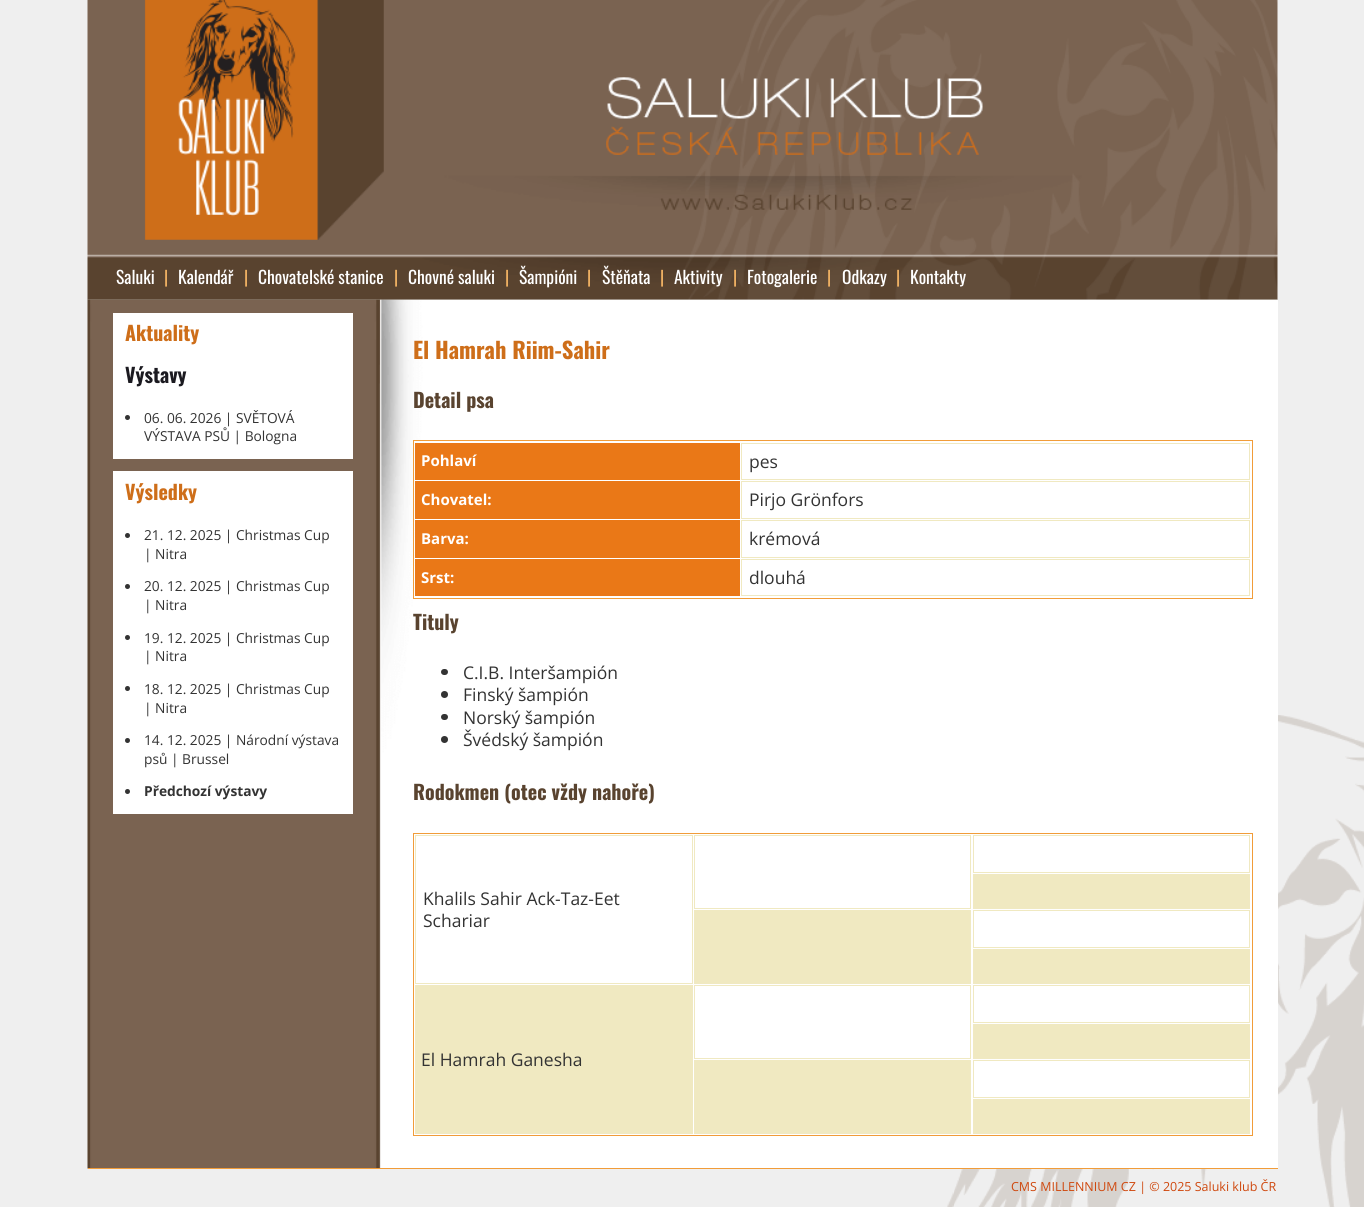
#include <cairo/cairo.h>
#include <math.h>
#include <stddef.h>

typedef struct { double x, y; const char *s; } line_t;
typedef struct { double x, y, w, h; unsigned color; } box_t;
static cairo_t *cr;

static void rgb(unsigned color)
{
	cairo_set_source_rgb(cr, (color >> 16) / 255.0, (color >> 8 & 255) / 255.0, (color & 255) / 255.0);
}

static void rrect(double x, double y, double w, double h, double r)
{
	cairo_new_sub_path(cr);
	cairo_arc(cr, x + w - r, y + h - r, r, 0, M_PI / 2);
	cairo_arc(cr, x + r, y + h - r, r, M_PI / 2, M_PI);
	cairo_arc(cr, x + r, y + r, r, M_PI, 1.5 * M_PI);
	cairo_arc(cr, x + w - r, y + r, r, 1.5 * M_PI, 2 * M_PI);
	cairo_close_path(cr);
}

static void image(const char *path, double x, double y, double w, double h)
{
	cairo_surface_t *image = cairo_image_surface_create_from_png(path);
	cairo_save(cr);
	cairo_set_source_surface(cr, image, x, y);
	cairo_rectangle(cr, x, y, w, h);
	cairo_fill(cr);
	cairo_restore(cr);
	cairo_surface_destroy(image);
}

int main(void) {
	cairo_surface_t *surface = cairo_image_surface_create(CAIRO_FORMAT_RGB24, 1364, 1207);
	cr = cairo_create(surface);
	cairo_font_options_t *options = cairo_font_options_create();
	cairo_font_options_set_hint_metrics(options, CAIRO_HINT_METRICS_OFF);
	cairo_font_options_set_hint_style(options, CAIRO_HINT_STYLE_NONE);
	cairo_set_font_options(cr, options);
	cairo_set_miter_limit(cr, 4);
	rgb(0xefefef);
	cairo_paint(cr);
	image("img/1.png", 947, 715, 417, 492);
	image("img/2.png", 87, 0, 1191, 300);
	rgb(0xffffff);
	cairo_rectangle(cr, 1277, 300, 1, 868);
	cairo_fill(cr);
	image("img/3.png", 87, 299, 1191, 870);
	rgb(0xf19c39);
	cairo_rectangle(cr, 88, 1168, 1190, 1);
	cairo_fill(cr);
	rgb(0xffffff);
	cairo_rectangle(cr, 113, 313, 240, 146);
	cairo_fill(cr);
	rgb(0x333333);
	cairo_arc(cr, 127.5, 417.5, 2.5, 0, 2 * M_PI);
	cairo_fill(cr);
	rgb(0xffffff);
	cairo_rectangle(cr, 113, 471, 240, 343);
	cairo_fill(cr);
	rgb(0x333333);
	cairo_arc(cr, 127.5, 535.5, 2.5, 0, 2 * M_PI);
	cairo_fill(cr);
	cairo_arc(cr, 127.5, 586.5, 2.5, 0, 2 * M_PI);
	cairo_fill(cr);
	cairo_arc(cr, 127.5, 637.5, 2.5, 0, 2 * M_PI);
	cairo_fill(cr);
	cairo_arc(cr, 127.5, 688.5, 2.5, 0, 2 * M_PI);
	cairo_fill(cr);
	cairo_arc(cr, 127.5, 740.5, 2.5, 0, 2 * M_PI);
	cairo_fill(cr);
	cairo_arc(cr, 127.5, 791.5, 2.5, 0, 2 * M_PI);
	cairo_fill(cr);
	cairo_rectangle(cr, 413.5, 440.5, 839, 158);
	rgb(0xf19c39);
	cairo_set_line_width(cr, 1);
	cairo_stroke(cr);
	rgb(0xea7817);
	cairo_rectangle(cr, 415, 443, 325, 37);
	cairo_fill(cr);
	cairo_rectangle(cr, 741.5, 443.5, 508, 36);
	rgb(0xf0e9c1);
	cairo_stroke(cr);
	rgb(0xea7817);
	cairo_rectangle(cr, 415, 481, 325, 38);
	cairo_fill(cr);
	cairo_rectangle(cr, 741.5, 481.5, 508, 37);
	rgb(0xf0e9c1);
	cairo_stroke(cr);
	rgb(0xea7817);
	cairo_rectangle(cr, 415, 520, 325, 38);
	cairo_fill(cr);
	cairo_rectangle(cr, 741.5, 520.5, 508, 37);
	rgb(0xf0e9c1);
	cairo_stroke(cr);
	rgb(0xea7817);
	cairo_rectangle(cr, 415, 559, 325, 37);
	cairo_fill(cr);
	cairo_rectangle(cr, 741.5, 559.5, 508, 36);
	rgb(0xf0e9c1);
	cairo_stroke(cr);
	rgb(0x333333);
	rrect(441, 669, 7, 6, 3);
	cairo_fill(cr);
	cairo_arc(cr, 444.5, 694.5, 3.5, 0, 2 * M_PI);
	cairo_fill(cr);
	rrect(441, 714, 7, 6, 3);
	cairo_fill(cr);
	cairo_arc(cr, 444.5, 739.5, 3.5, 0, 2 * M_PI);
	cairo_fill(cr);
	cairo_rectangle(cr, 413.5, 833.5, 839, 302);
	rgb(0xf19c39);
	cairo_stroke(cr);
	cairo_rectangle(cr, 694.5, 835.5, 276, 73);
	rgb(0xf0e9c1);
	cairo_stroke(cr);
	cairo_rectangle(cr, 973.5, 835.5, 276, 37);
	cairo_stroke(cr);
	cairo_rectangle(cr, 415.5, 835.5, 277, 148);
	cairo_stroke(cr);
	cairo_rectangle(cr, 973, 874, 277, 35);
	cairo_fill(cr);
	cairo_rectangle(cr, 694, 910, 277, 74);
	cairo_fill(cr);
	cairo_rectangle(cr, 973.5, 910.5, 276, 37);
	cairo_stroke(cr);
	cairo_rectangle(cr, 973, 949, 277, 35);
	cairo_fill(cr);
	cairo_rectangle(cr, 694.5, 985.5, 276, 73);
	cairo_stroke(cr);
	cairo_rectangle(cr, 973.5, 985.5, 276, 37);
	cairo_stroke(cr);
	{
		static const box_t items[] = {
			{415, 985, 278, 149, 0xf0e9c1},
			{973, 1024, 277, 35, 0xf0e9c1},
			{694, 1060, 277, 74, 0xf0e9c1},
		};
		for (size_t i = 0; i < sizeof items / sizeof *items; i++) {
			rgb(items[i].color);
			cairo_rectangle(cr, items[i].x, items[i].y, items[i].w, items[i].h);
			cairo_fill(cr);
		}
	}
	cairo_rectangle(cr, 973.5, 1060.5, 276, 37);
	cairo_stroke(cr);
	cairo_rectangle(cr, 973, 1099, 277, 35);
	cairo_fill(cr);
	cairo_select_font_face(cr, "Oswald", CAIRO_FONT_SLANT_NORMAL, CAIRO_FONT_WEIGHT_NORMAL);
	cairo_set_font_size(cr, 17.5);
	rgb(0xffffff);
	cairo_move_to(cr, 116, 284);
	cairo_show_text(cr, "Saluki");
	rgb(0xf4b464);
	cairo_move_to(cr, 164, 284);
	cairo_show_text(cr, "|");
	rgb(0xffffff);
	cairo_move_to(cr, 178, 284);
	cairo_show_text(cr, "Kalendář");
	rgb(0xf4b464);
	cairo_move_to(cr, 244, 284);
	cairo_show_text(cr, "|");
	rgb(0xffffff);
	cairo_move_to(cr, 258, 284);
	cairo_show_text(cr, "Chovatelské stanice");
	rgb(0xf4b464);
	cairo_move_to(cr, 394, 284);
	cairo_show_text(cr, "|");
	rgb(0xffffff);
	cairo_move_to(cr, 408, 284);
	cairo_show_text(cr, "Chovné saluki");
	rgb(0xf4b464);
	cairo_move_to(cr, 505, 284);
	cairo_show_text(cr, "|");
	rgb(0xffffff);
	cairo_move_to(cr, 519, 284);
	cairo_show_text(cr, "Šampióni");
	rgb(0xf4b464);
	cairo_move_to(cr, 587, 284);
	cairo_show_text(cr, "|");
	rgb(0xffffff);
	cairo_move_to(cr, 602, 284);
	cairo_show_text(cr, "Štěňata");
	rgb(0xf4b464);
	cairo_move_to(cr, 660, 284);
	cairo_show_text(cr, "|");
	rgb(0xffffff);
	cairo_move_to(cr, 674, 284);
	cairo_show_text(cr, "Aktivity");
	rgb(0xf4b464);
	cairo_move_to(cr, 733, 284);
	cairo_show_text(cr, "|");
	rgb(0xffffff);
	cairo_move_to(cr, 747, 284);
	cairo_show_text(cr, "Fotogalerie");
	rgb(0xf4b464);
	cairo_move_to(cr, 827, 284);
	cairo_show_text(cr, "|");
	rgb(0xffffff);
	cairo_move_to(cr, 842, 284);
	cairo_show_text(cr, "Odkazy");
	rgb(0xf4b464);
	cairo_move_to(cr, 896, 284);
	cairo_show_text(cr, "|");
	rgb(0xffffff);
	cairo_move_to(cr, 910, 284);
	cairo_show_text(cr, "Kontakty");
	cairo_select_font_face(cr, "Oswald", CAIRO_FONT_SLANT_NORMAL, CAIRO_FONT_WEIGHT_BOLD);
	cairo_set_font_size(cr, 20);
	rgb(0xce6e19);
	cairo_move_to(cr, 125, 341);
	cairo_show_text(cr, "Aktuality");
	rgb(0x1b1a20);
	cairo_move_to(cr, 125, 383);
	cairo_show_text(cr, "Výstavy");
	cairo_select_font_face(cr, "Open Sans", CAIRO_FONT_SLANT_NORMAL, CAIRO_FONT_WEIGHT_NORMAL);
	cairo_set_font_size(cr, 13.75);
	rgb(0x333333);
	cairo_move_to(cr, 144, 423);
	cairo_show_text(cr, "06. 06. 2026 | SVĚTOVÁ");
	cairo_move_to(cr, 144, 441);
	cairo_show_text(cr, "VÝSTAVA PSŮ | Bologna");
	cairo_select_font_face(cr, "Oswald", CAIRO_FONT_SLANT_NORMAL, CAIRO_FONT_WEIGHT_BOLD);
	cairo_set_font_size(cr, 20);
	rgb(0xce6e19);
	cairo_move_to(cr, 125, 500);
	cairo_show_text(cr, "Výsledky");
	cairo_select_font_face(cr, "Open Sans", CAIRO_FONT_SLANT_NORMAL, CAIRO_FONT_WEIGHT_NORMAL);
	cairo_set_font_size(cr, 13.75);
	rgb(0x333333);
	{
		static const line_t items[] = {
			{144, 540, "21. 12. 2025 | Christmas Cup"},
			{144, 559, "| Nitra"},
			{144, 591, "20. 12. 2025 | Christmas Cup"},
			{144, 610, "| Nitra"},
			{144, 643, "19. 12. 2025 | Christmas Cup"},
			{144, 661, "| Nitra"},
			{144, 694, "18. 12. 2025 | Christmas Cup"},
			{144, 713, "| Nitra"},
			{144, 745, "14. 12. 2025 | Národní výstava"},
			{144, 764, "psů | Brussel"},
		};
		for (size_t i = 0; i < sizeof items / sizeof *items; i++) {
			cairo_move_to(cr, items[i].x, items[i].y);
			cairo_show_text(cr, items[i].s);
		}
	}
	cairo_select_font_face(cr, "Open Sans", CAIRO_FONT_SLANT_NORMAL, CAIRO_FONT_WEIGHT_BOLD);
	cairo_move_to(cr, 144, 796);
	cairo_show_text(cr, "Předchozí výstavy");
	cairo_select_font_face(cr, "Oswald", CAIRO_FONT_SLANT_NORMAL, CAIRO_FONT_WEIGHT_BOLD);
	cairo_set_font_size(cr, 22.5);
	rgb(0xce6e19);
	cairo_move_to(cr, 413, 359);
	cairo_show_text(cr, "El Hamrah Riim-Sahir");
	cairo_set_font_size(cr, 20);
	rgb(0x59432f);
	cairo_move_to(cr, 413, 408);
	cairo_show_text(cr, "Detail psa");
	cairo_select_font_face(cr, "Open Sans", CAIRO_FONT_SLANT_NORMAL, CAIRO_FONT_WEIGHT_BOLD);
	cairo_set_font_size(cr, 15);
	rgb(0xffffff);
	cairo_move_to(cr, 421, 466);
	cairo_show_text(cr, "Pohlaví");
	cairo_select_font_face(cr, "Open Sans", CAIRO_FONT_SLANT_NORMAL, CAIRO_FONT_WEIGHT_NORMAL);
	cairo_set_font_size(cr, 17.5);
	rgb(0x333333);
	cairo_move_to(cr, 749, 468);
	cairo_show_text(cr, "pes");
	cairo_select_font_face(cr, "Open Sans", CAIRO_FONT_SLANT_NORMAL, CAIRO_FONT_WEIGHT_BOLD);
	cairo_set_font_size(cr, 15);
	rgb(0xffffff);
	cairo_move_to(cr, 421, 505);
	cairo_show_text(cr, "Chovatel:");
	cairo_select_font_face(cr, "Open Sans", CAIRO_FONT_SLANT_NORMAL, CAIRO_FONT_WEIGHT_NORMAL);
	cairo_set_font_size(cr, 17.5);
	rgb(0x333333);
	cairo_move_to(cr, 749, 506);
	cairo_show_text(cr, "Pirjo Grönfors");
	cairo_select_font_face(cr, "Open Sans", CAIRO_FONT_SLANT_NORMAL, CAIRO_FONT_WEIGHT_BOLD);
	cairo_set_font_size(cr, 15);
	rgb(0xffffff);
	cairo_move_to(cr, 421, 544);
	cairo_show_text(cr, "Barva:");
	cairo_select_font_face(cr, "Open Sans", CAIRO_FONT_SLANT_NORMAL, CAIRO_FONT_WEIGHT_NORMAL);
	cairo_set_font_size(cr, 17.5);
	rgb(0x333333);
	cairo_move_to(cr, 749, 545);
	cairo_show_text(cr, "krémová");
	cairo_select_font_face(cr, "Open Sans", CAIRO_FONT_SLANT_NORMAL, CAIRO_FONT_WEIGHT_BOLD);
	cairo_set_font_size(cr, 15);
	rgb(0xffffff);
	cairo_move_to(cr, 421, 583);
	cairo_show_text(cr, "Srst:");
	cairo_select_font_face(cr, "Open Sans", CAIRO_FONT_SLANT_NORMAL, CAIRO_FONT_WEIGHT_NORMAL);
	cairo_set_font_size(cr, 17.5);
	rgb(0x333333);
	cairo_move_to(cr, 749, 584);
	cairo_show_text(cr, "dlouhá");
	cairo_select_font_face(cr, "Oswald", CAIRO_FONT_SLANT_NORMAL, CAIRO_FONT_WEIGHT_BOLD);
	cairo_set_font_size(cr, 20);
	rgb(0x59432f);
	cairo_move_to(cr, 413, 630);
	cairo_show_text(cr, "Tituly");
	cairo_select_font_face(cr, "Open Sans", CAIRO_FONT_SLANT_NORMAL, CAIRO_FONT_WEIGHT_NORMAL);
	cairo_set_font_size(cr, 17.5);
	rgb(0x333333);
	{
		static const line_t items[] = {
			{463, 679, "C.I.B. Interšampión"},
			{463, 701, "Finský šampión"},
			{463, 724, "Norský šampión"},
			{463, 746, "Švédský šampión"},
		};
		for (size_t i = 0; i < sizeof items / sizeof *items; i++) {
			cairo_move_to(cr, items[i].x, items[i].y);
			cairo_show_text(cr, items[i].s);
		}
	}
	cairo_select_font_face(cr, "Oswald", CAIRO_FONT_SLANT_NORMAL, CAIRO_FONT_WEIGHT_BOLD);
	cairo_set_font_size(cr, 20);
	rgb(0x59432f);
	cairo_move_to(cr, 413, 800);
	cairo_show_text(cr, "Rodokmen (otec vždy nahoře)");
	cairo_select_font_face(cr, "Open Sans", CAIRO_FONT_SLANT_NORMAL, CAIRO_FONT_WEIGHT_NORMAL);
	cairo_set_font_size(cr, 17.5);
	rgb(0x333333);
	{
		static const line_t items[] = {
			{423, 905, "Khalils Sahir Ack-Taz-Eet"},
			{423, 927, "Schariar"},
			{421, 1066, "El Hamrah Ganesha"},
		};
		for (size_t i = 0; i < sizeof items / sizeof *items; i++) {
			cairo_move_to(cr, items[i].x, items[i].y);
			cairo_show_text(cr, items[i].s);
		}
	}
	cairo_set_font_size(cr, 12.5);
	rgb(0xcf480e);
	cairo_move_to(cr, 1011, 1191);
	cairo_show_text(cr, "CMS MILLENNIUM CZ | © 2025 Saluki klub ČR");
	cairo_surface_write_to_png(surface, "page.png");
	cairo_font_options_destroy(options);
	cairo_destroy(cr);
	cairo_surface_destroy(surface);
	return 0;
}
